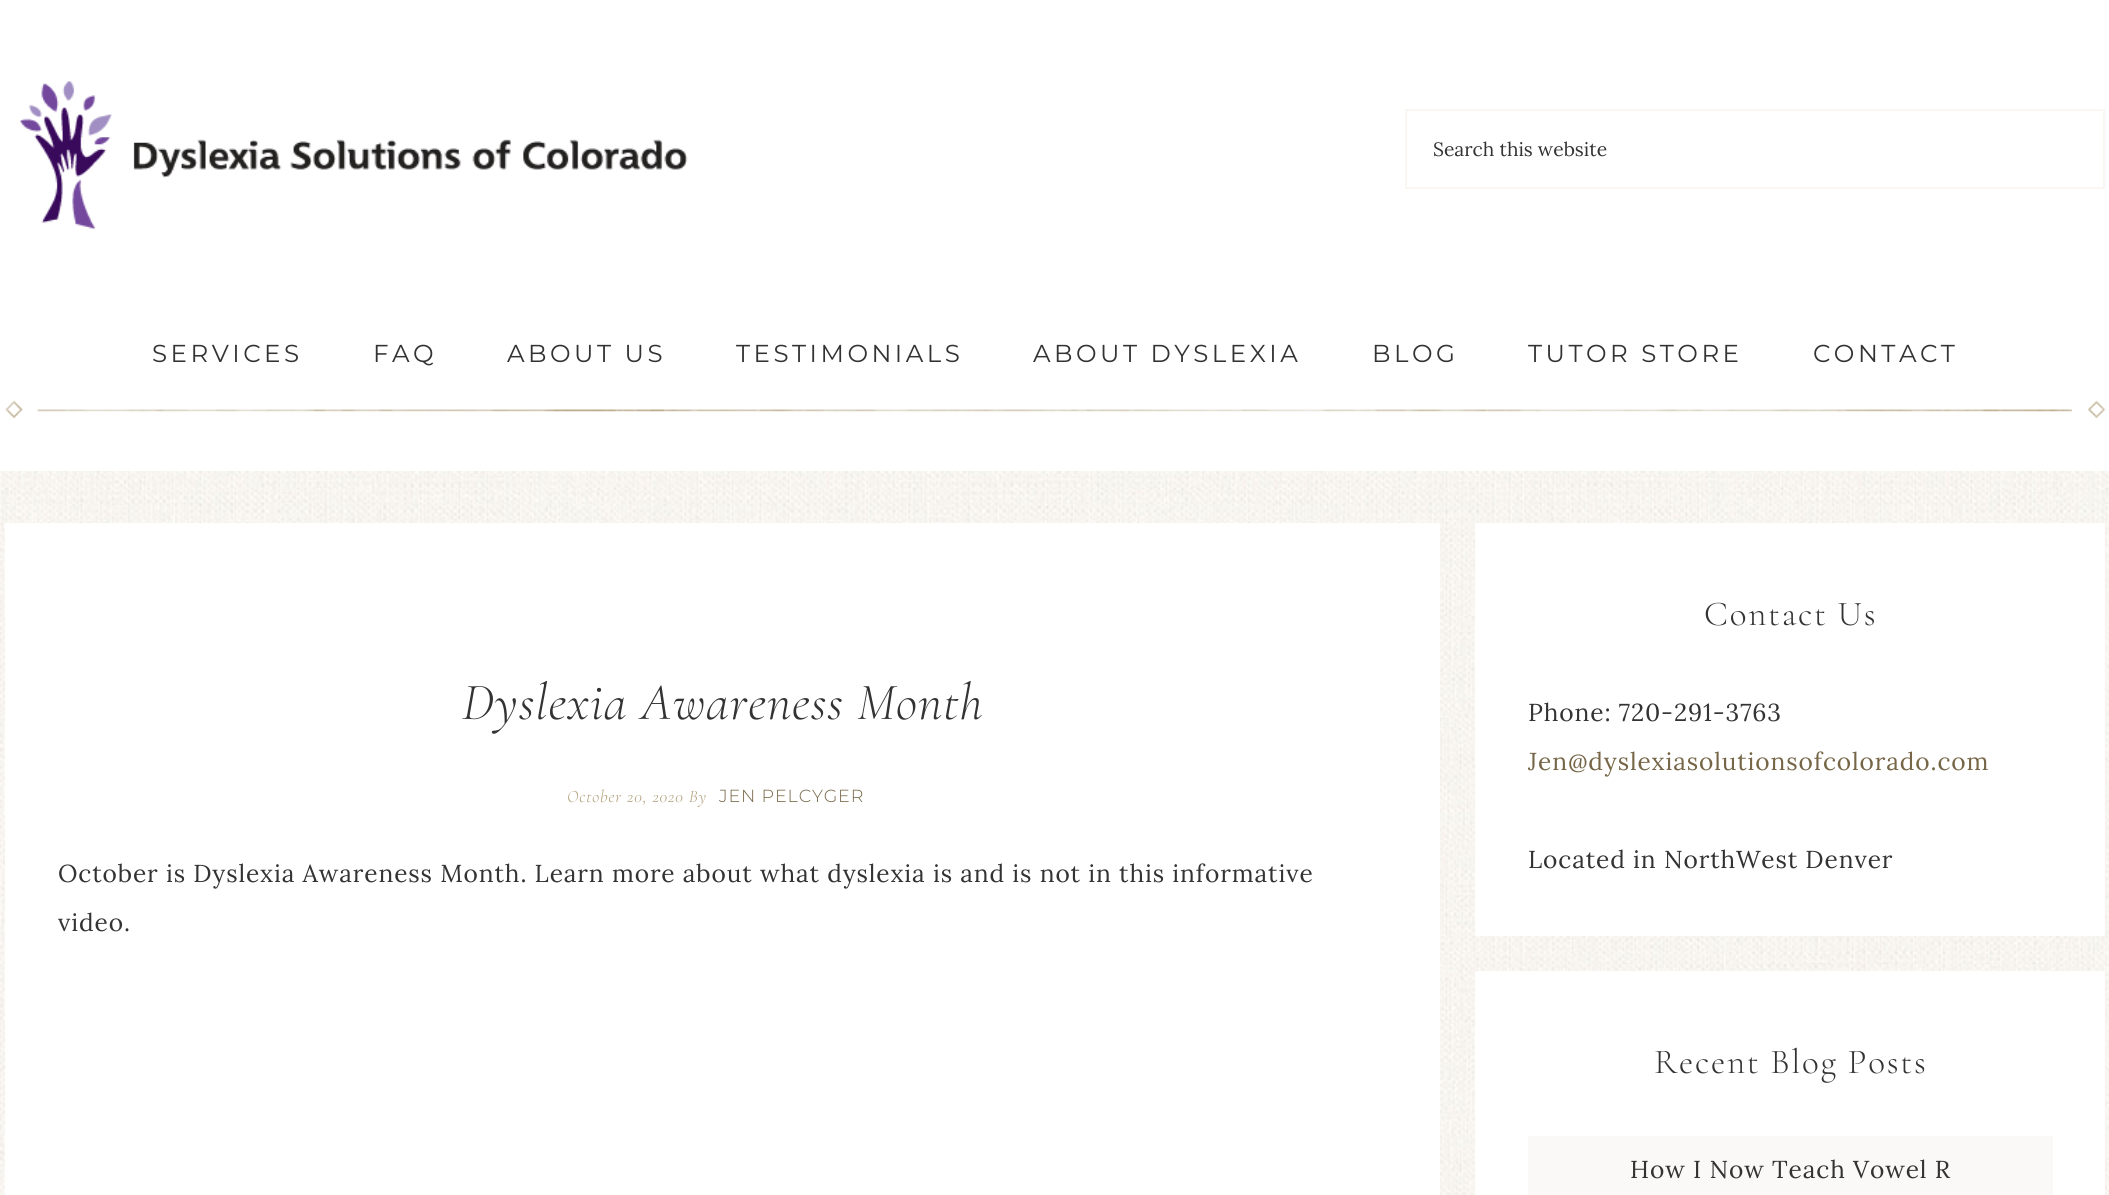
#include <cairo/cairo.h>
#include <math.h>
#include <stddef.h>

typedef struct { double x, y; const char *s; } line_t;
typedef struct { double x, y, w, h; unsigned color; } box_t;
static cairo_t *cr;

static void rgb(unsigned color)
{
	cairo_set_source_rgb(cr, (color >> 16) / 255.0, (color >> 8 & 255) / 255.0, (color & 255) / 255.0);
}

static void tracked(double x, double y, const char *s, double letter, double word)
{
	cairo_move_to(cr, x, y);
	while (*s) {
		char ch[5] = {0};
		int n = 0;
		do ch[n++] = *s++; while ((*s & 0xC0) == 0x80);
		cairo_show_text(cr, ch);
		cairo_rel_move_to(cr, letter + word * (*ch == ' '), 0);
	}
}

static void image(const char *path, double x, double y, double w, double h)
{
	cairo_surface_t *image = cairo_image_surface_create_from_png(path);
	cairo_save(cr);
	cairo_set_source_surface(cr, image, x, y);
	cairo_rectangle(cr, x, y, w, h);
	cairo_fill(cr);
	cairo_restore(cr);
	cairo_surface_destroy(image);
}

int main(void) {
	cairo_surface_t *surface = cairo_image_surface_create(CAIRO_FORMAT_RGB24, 2109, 1195);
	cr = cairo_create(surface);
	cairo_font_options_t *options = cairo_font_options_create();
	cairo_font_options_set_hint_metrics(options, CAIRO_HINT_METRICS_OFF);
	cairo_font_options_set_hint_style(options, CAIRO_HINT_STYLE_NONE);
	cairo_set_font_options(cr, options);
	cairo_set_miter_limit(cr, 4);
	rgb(0xffffff);
	cairo_paint(cr);
	image("img/1.png", 0, 471, 2109, 724);
	image("img/2.png", 20, 81, 668, 149);
	cairo_rectangle(cr, 1406, 110, 698, 78);
	rgb(0xfaf7f2);
	cairo_stroke(cr);
	image("img/3.png", 5, 400, 2101, 19);
	{
		static const box_t items[] = {
			{5, 523, 1435, 672, 0xffffff},
			{1475, 523, 630, 413, 0xffffff},
			{1475, 971, 630, 224, 0xffffff},
			{1528, 1136, 525, 59, 0xfaf9f7},
		};
		for (size_t i = 0; i < sizeof items / sizeof *items; i++) {
			rgb(items[i].color);
			cairo_rectangle(cr, items[i].x, items[i].y, items[i].w, items[i].h);
			cairo_fill(cr);
		}
	}
	cairo_select_font_face(cr, "Lora", CAIRO_FONT_SLANT_NORMAL, CAIRO_FONT_WEIGHT_NORMAL);
	cairo_set_font_size(cr, 19.25);
	rgb(0x333333);
	cairo_move_to(cr, 1433, 156);
	cairo_show_text(cr, "Search this website");
	cairo_select_font_face(cr, "Montserrat", CAIRO_FONT_SLANT_NORMAL, CAIRO_FONT_WEIGHT_NORMAL);
	cairo_set_font_size(cr, 24.5);
	{
		static const line_t items[] = {
			{152, 362, "SERVICES"},
			{373, 362, "FAQ"},
			{507, 362, "ABOUT US"},
			{736, 362, "TESTIMONIALS"},
			{1033, 362, "ABOUT DYSLEXIA"},
			{1372, 362, "BLOG"},
			{1528, 362, "TUTOR STORE"},
			{1813, 362, "CONTACT"},
		};
		for (size_t i = 0; i < sizeof items / sizeof *items; i++) {
			tracked(items[i].x, items[i].y, items[i].s, 3.5, 0);
		}
	}
	cairo_select_font_face(cr, "Cormorant Garamond Light", CAIRO_FONT_SLANT_ITALIC, CAIRO_FONT_WEIGHT_NORMAL);
	cairo_set_font_size(cr, 52.5);
	tracked(462, 719, "Dyslexia Awareness Month", 0.88, 0);
	cairo_set_font_size(cr, 17.5);
	rgb(0xae9d78);
	tracked(567, 802, "October 20, 2020 By", 0.88, 0);
	cairo_select_font_face(cr, "Montserrat Light", CAIRO_FONT_SLANT_NORMAL, CAIRO_FONT_WEIGHT_NORMAL);
	rgb(0x766647);
	tracked(719, 802, "JEN PELCYGER", 0.88, 0);
	cairo_select_font_face(cr, "Lora", CAIRO_FONT_SLANT_NORMAL, CAIRO_FONT_WEIGHT_NORMAL);
	cairo_set_font_size(cr, 24.5);
	rgb(0x333333);
	tracked(58, 882, "October is Dyslexia Awareness Month. Learn more about what dyslexia is and is not in this informative", 0.88, 0);
	tracked(58, 931, "video.", 0.88, 0);
	cairo_select_font_face(cr, "Cormorant Garamond Light", CAIRO_FONT_SLANT_NORMAL, CAIRO_FONT_WEIGHT_NORMAL);
	cairo_set_font_size(cr, 35);
	tracked(1704, 625, "Contact Us", 1.75, 0);
	cairo_select_font_face(cr, "Lora", CAIRO_FONT_SLANT_NORMAL, CAIRO_FONT_WEIGHT_NORMAL);
	cairo_set_font_size(cr, 24.5);
	tracked(1528, 721, "Phone: 720-291-3763", 0.88, 0);
	rgb(0x766647);
	tracked(1528, 770, "Jen@dyslexiasolutionsofcolorado.com", 0.88, 0);
	rgb(0x333333);
	tracked(1528, 868, "Located in NorthWest Denver", 0.88, 0);
	cairo_select_font_face(cr, "Cormorant Garamond Light", CAIRO_FONT_SLANT_NORMAL, CAIRO_FONT_WEIGHT_NORMAL);
	cairo_set_font_size(cr, 35);
	tracked(1654, 1073, "Recent Blog Posts", 1.75, 0);
	cairo_select_font_face(cr, "Lora", CAIRO_FONT_SLANT_NORMAL, CAIRO_FONT_WEIGHT_NORMAL);
	cairo_set_font_size(cr, 24.5);
	tracked(1630, 1178, "How I Now Teach Vowel R", 0.88, 0);
	cairo_surface_write_to_png(surface, "page.png");
	cairo_font_options_destroy(options);
	cairo_destroy(cr);
	cairo_surface_destroy(surface);
	return 0;
}
